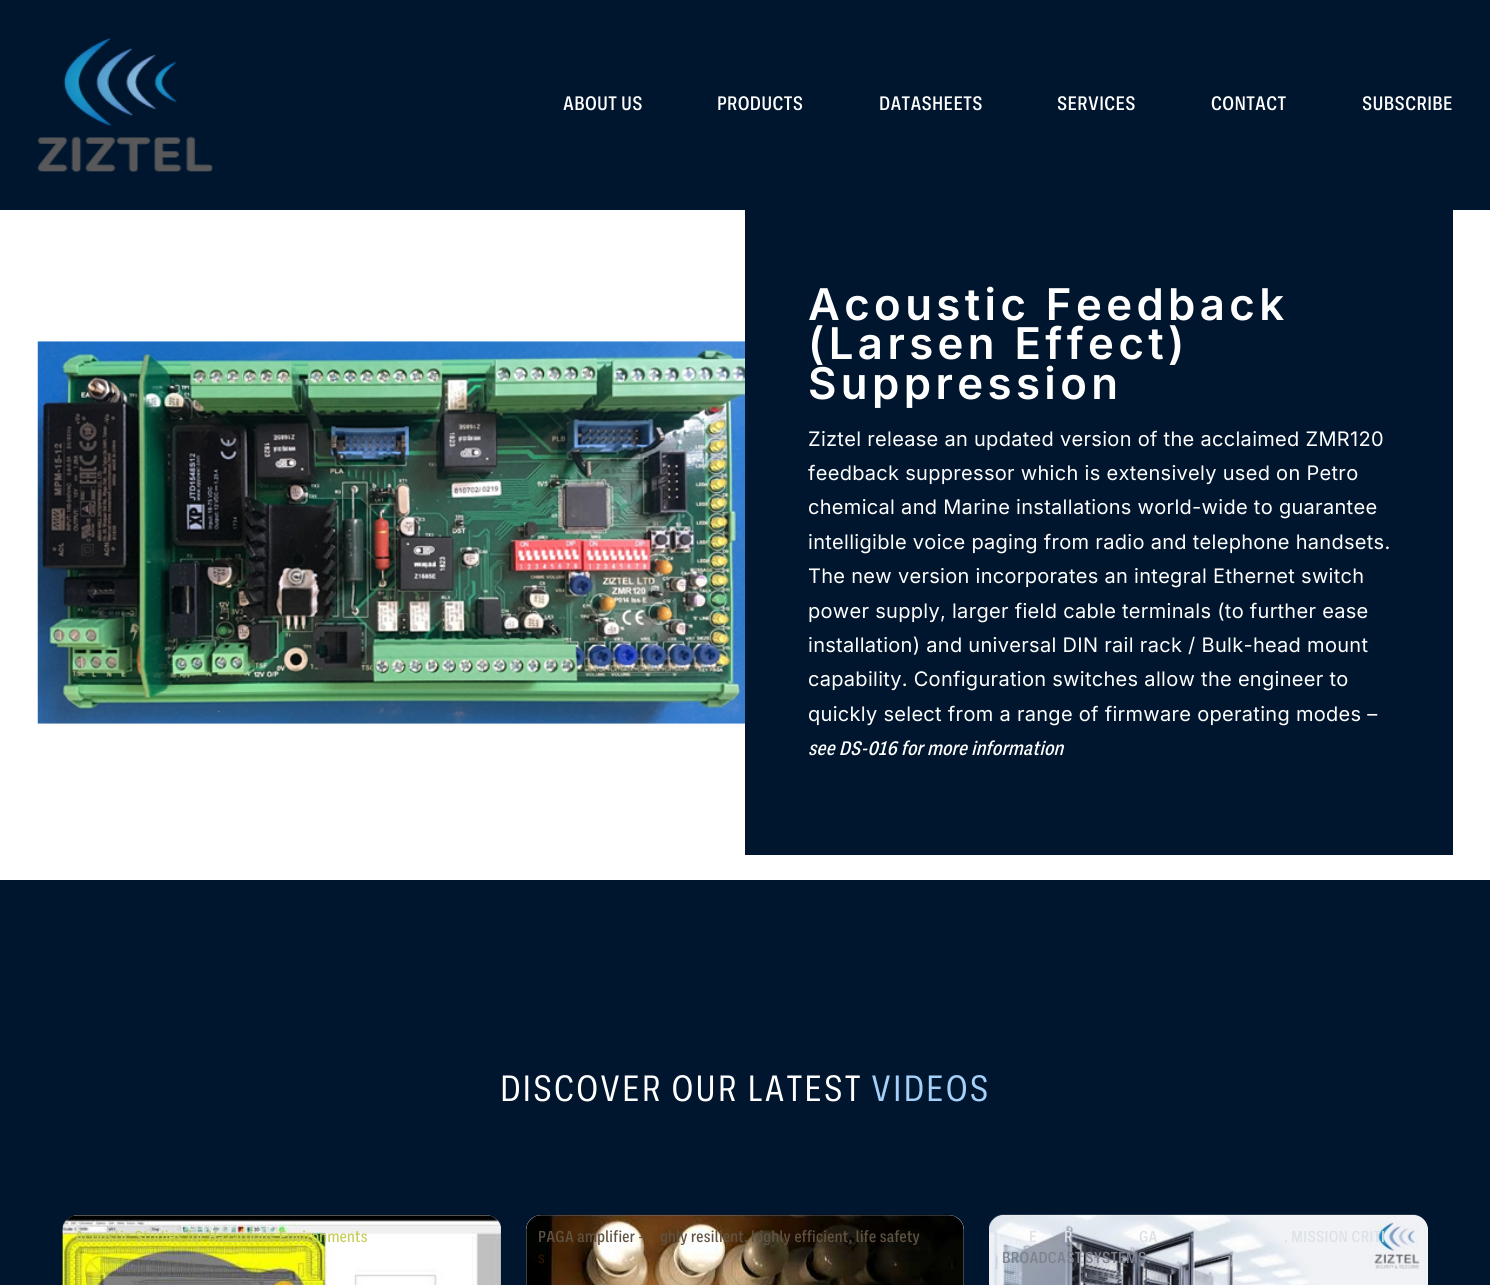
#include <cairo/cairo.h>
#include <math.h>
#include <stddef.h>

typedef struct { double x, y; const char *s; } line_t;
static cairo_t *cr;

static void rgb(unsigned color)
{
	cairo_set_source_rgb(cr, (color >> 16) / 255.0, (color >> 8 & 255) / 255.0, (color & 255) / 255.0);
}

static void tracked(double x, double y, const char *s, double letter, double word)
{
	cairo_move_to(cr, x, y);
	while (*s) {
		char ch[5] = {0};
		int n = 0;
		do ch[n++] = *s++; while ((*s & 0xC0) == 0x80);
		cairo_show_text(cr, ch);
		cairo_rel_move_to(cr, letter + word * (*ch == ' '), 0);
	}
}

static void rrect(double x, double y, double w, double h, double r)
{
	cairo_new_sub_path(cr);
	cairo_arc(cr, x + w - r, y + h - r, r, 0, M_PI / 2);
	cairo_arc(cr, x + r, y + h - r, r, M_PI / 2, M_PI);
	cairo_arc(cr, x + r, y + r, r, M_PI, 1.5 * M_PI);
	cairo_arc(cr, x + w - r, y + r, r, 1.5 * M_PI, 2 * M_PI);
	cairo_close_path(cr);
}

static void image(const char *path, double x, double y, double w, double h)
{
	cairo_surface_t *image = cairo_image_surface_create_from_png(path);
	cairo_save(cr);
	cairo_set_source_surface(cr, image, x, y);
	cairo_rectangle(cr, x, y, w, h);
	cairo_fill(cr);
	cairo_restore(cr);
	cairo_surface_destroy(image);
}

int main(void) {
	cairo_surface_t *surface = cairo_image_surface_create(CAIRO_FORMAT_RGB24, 1490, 1285);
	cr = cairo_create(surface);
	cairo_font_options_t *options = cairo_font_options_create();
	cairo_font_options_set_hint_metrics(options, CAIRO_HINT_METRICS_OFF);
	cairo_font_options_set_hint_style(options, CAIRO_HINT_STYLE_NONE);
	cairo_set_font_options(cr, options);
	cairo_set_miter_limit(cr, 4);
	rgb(0xffffff);
	cairo_paint(cr);
	rgb(0x00162e);
	cairo_rectangle(cr, 0, 0, 1490, 210);
	cairo_fill(cr);
	image("img/1.png", 37, 38, 176, 135);
	image("img/2.png", 37, 341, 708, 383);
	cairo_rectangle(cr, 745, 210, 708, 645);
	cairo_fill(cr);
	cairo_rectangle(cr, 0, 880, 1490, 405);
	cairo_fill(cr);
	rgb(0xffffff);
	rrect(63, 1215, 438, 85, 15);
	cairo_fill(cr);
	image("img/3.png", 62, 1214, 439, 71);
	rrect(526, 1215, 438, 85, 15);
	cairo_fill(cr);
	image("img/4.png", 526, 1214, 438, 71);
	rrect(989, 1215, 439, 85, 15);
	cairo_fill(cr);
	image("img/5.png", 989, 1214, 439, 71);
	cairo_select_font_face(cr, "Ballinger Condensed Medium", CAIRO_FONT_SLANT_NORMAL, CAIRO_FONT_WEIGHT_NORMAL);
	cairo_set_font_size(cr, 20);
	{
		static const line_t items[] = {
			{563, 110, "ABOUT US"},
			{717, 110, "PRODUCTS"},
			{879, 110, "DATASHEETS"},
			{1057, 110, "SERVICES"},
			{1211, 110, "CONTACT"},
			{1362, 110, "SUBSCRIBE"},
		};
		for (size_t i = 0; i < sizeof items / sizeof *items; i++) {
			tracked(items[i].x, items[i].y, items[i].s, 0.3, 0);
		}
	}
	cairo_select_font_face(cr, "Inter SemiBold", CAIRO_FONT_SLANT_NORMAL, CAIRO_FONT_WEIGHT_NORMAL);
	cairo_set_font_size(cr, 43.75);
	{
		static const line_t items[] = {
			{808, 320, "Acoustic Feedback"},
			{808, 359, "(Larsen Effect)"},
			{808, 399, "Suppression"},
		};
		for (size_t i = 0; i < sizeof items / sizeof *items; i++) {
			tracked(items[i].x, items[i].y, items[i].s, 4.4, 0);
		}
	}
	cairo_select_font_face(cr, "Inter", CAIRO_FONT_SLANT_NORMAL, CAIRO_FONT_WEIGHT_NORMAL);
	cairo_set_font_size(cr, 20);
	{
		static const line_t items[] = {
			{808, 446, "Ziztel release an updated version of the acclaimed ZMR120"},
			{808, 480, "feedback suppressor which is extensively used on Petro"},
			{808, 514, "chemical and Marine installations world-wide to guarantee"},
			{808, 549, "intelligible voice paging from radio and telephone handsets."},
			{808, 583, "The new version incorporates an integral Ethernet switch"},
			{808, 618, "power supply, larger field cable terminals (to further ease"},
			{808, 652, "installation) and universal DIN rail rack / Bulk-head mount"},
			{808, 686, "capability. Configuration switches allow the engineer to"},
			{808, 721, "quickly select from a range of firmware operating modes –"},
		};
		for (size_t i = 0; i < sizeof items / sizeof *items; i++) {
			tracked(items[i].x, items[i].y, items[i].s, 0.3, 0);
		}
	}
	cairo_select_font_face(cr, "Ballinger Condensed Medium", CAIRO_FONT_SLANT_ITALIC, CAIRO_FONT_WEIGHT_NORMAL);
	tracked(808, 755, "see DS-016 for more information", 0.3, 0);
	cairo_select_font_face(cr, "Ballinger Condensed", CAIRO_FONT_SLANT_NORMAL, CAIRO_FONT_WEIGHT_NORMAL);
	cairo_set_font_size(cr, 37.5);
	tracked(500, 1101, "DISCOVER OUR LATEST", 1.9, 0);
	rgb(0xa4d0fa);
	tracked(871, 1101, "VIDEOS", 1.9, 0);
	cairo_select_font_face(cr, "Ballinger Condensed Medium", CAIRO_FONT_SLANT_NORMAL, CAIRO_FONT_WEIGHT_NORMAL);
	cairo_set_font_size(cr, 16.25);
	rgb(0xc7ce5d);
	tracked(75, 1242, "Acoustic Studies for Hazardous Environments", 0.3, 0);
	rgb(0x605242);
	tracked(538, 1242, "PAGA amplifier -", 0.3, 0);
	tracked(660, 1242, "ghly resilient, highly efficient, life safety", 0.3, 0);
	rgb(0x2a1504);
	tracked(538, 1263, "s", 0.3, 0);
	rgb(0xdce1e7);
	{
		static const line_t items[] = {
			{1029, 1242, "E"},
			{1064, 1242, "R"},
			{1139, 1242, "GA"},
			{1284, 1242, ". MISSION CRITI"},
		};
		for (size_t i = 0; i < sizeof items / sizeof *items; i++) {
			tracked(items[i].x, items[i].y, items[i].s, 0.3, 0);
		}
	}
	rgb(0x7d838e);
	tracked(1002, 1263, "BROADCAST SYSTEMS.", 0.3, 0);
	cairo_surface_write_to_png(surface, "page.png");
	cairo_font_options_destroy(options);
	cairo_destroy(cr);
	cairo_surface_destroy(surface);
	return 0;
}
